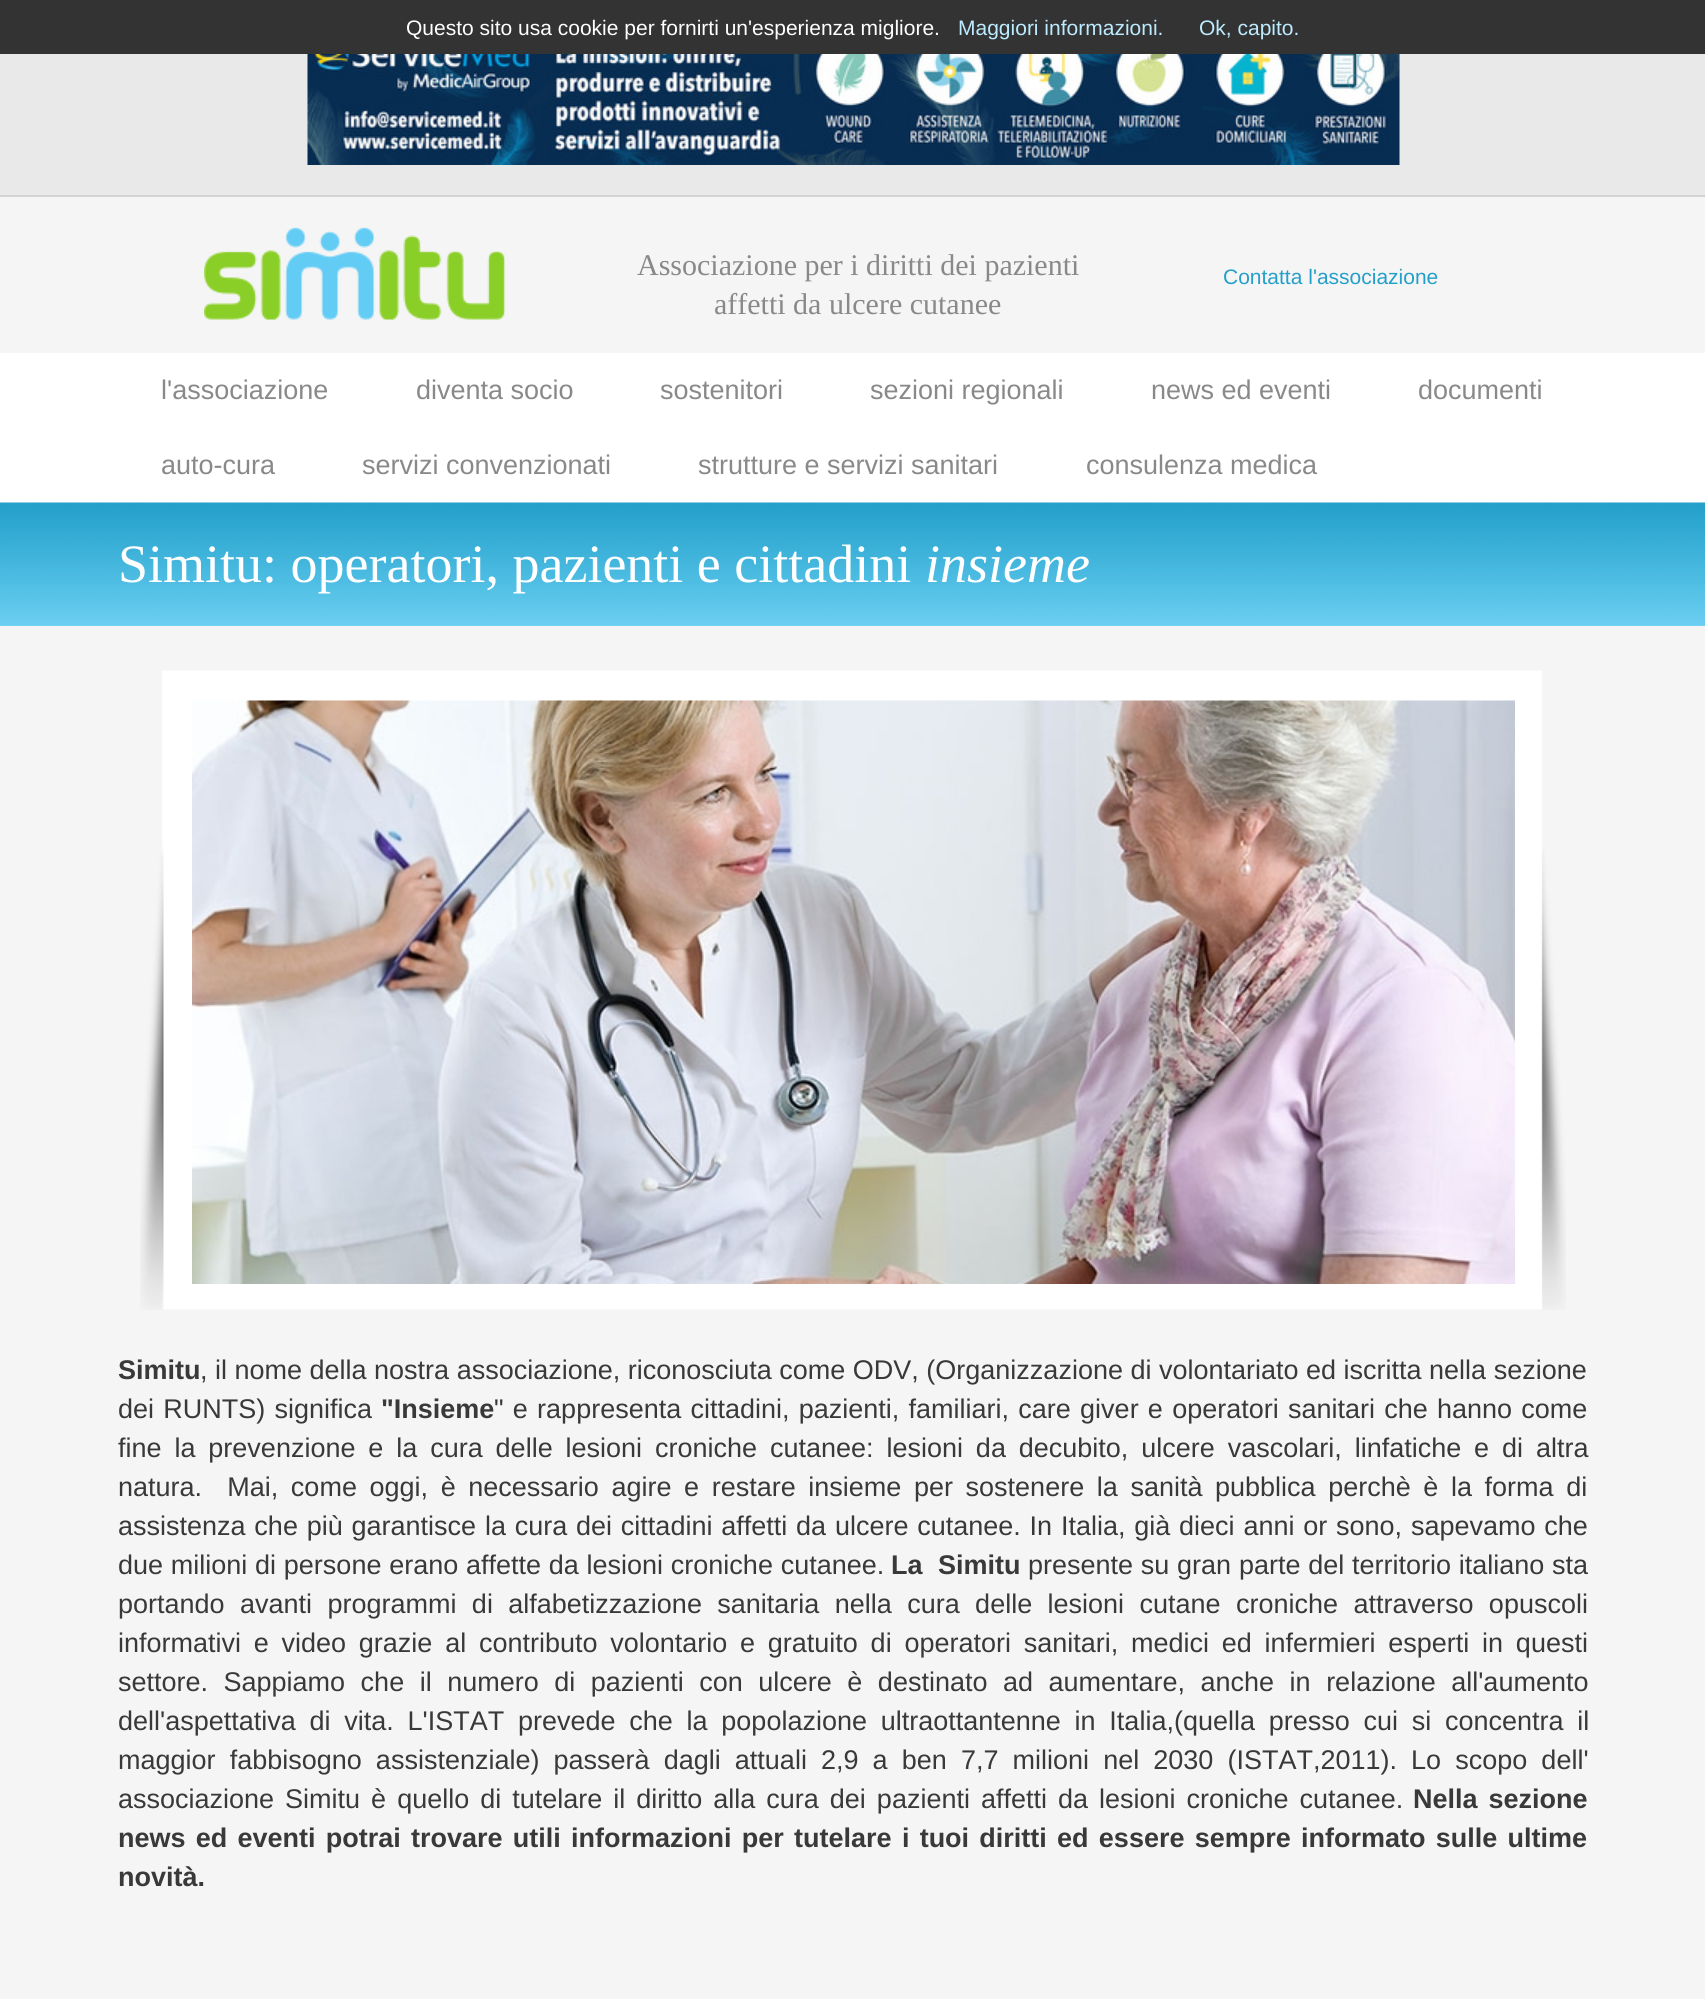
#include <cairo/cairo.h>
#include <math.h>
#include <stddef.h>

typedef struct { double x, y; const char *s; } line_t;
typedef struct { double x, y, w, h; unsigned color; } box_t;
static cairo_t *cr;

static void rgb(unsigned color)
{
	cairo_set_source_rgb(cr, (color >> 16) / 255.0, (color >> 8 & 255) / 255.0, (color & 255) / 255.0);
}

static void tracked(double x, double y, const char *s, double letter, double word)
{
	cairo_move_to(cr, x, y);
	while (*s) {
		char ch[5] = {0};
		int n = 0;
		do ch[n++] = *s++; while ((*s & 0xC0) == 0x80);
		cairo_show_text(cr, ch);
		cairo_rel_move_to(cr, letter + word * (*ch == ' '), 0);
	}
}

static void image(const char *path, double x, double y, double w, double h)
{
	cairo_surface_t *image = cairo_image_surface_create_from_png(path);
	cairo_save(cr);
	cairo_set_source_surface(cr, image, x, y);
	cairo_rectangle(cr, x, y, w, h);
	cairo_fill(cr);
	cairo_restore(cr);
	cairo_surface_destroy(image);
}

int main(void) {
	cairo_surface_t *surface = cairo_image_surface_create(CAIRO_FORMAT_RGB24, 1705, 1999);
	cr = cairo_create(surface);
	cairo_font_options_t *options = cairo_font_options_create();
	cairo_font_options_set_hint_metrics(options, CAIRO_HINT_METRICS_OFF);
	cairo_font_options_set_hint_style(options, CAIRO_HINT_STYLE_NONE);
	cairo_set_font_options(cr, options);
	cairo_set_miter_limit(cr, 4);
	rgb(0xf5f5f5);
	cairo_paint(cr);
	{
		static const box_t items[] = {
			{0, 0, 1705, 54, 0x333333},
			{0, 54, 1705, 141, 0xe9e9e9},
			{0, 195, 1705, 2, 0xd3d3d3},
		};
		for (size_t i = 0; i < sizeof items / sizeof *items; i++) {
			rgb(items[i].color);
			cairo_rectangle(cr, items[i].x, items[i].y, items[i].w, items[i].h);
			cairo_fill(cr);
		}
	}
	image("img/1.png", 307, 54, 1093, 111);
	image("img/2.png", 204, 227, 302, 93);
	rgb(0xffffff);
	cairo_rectangle(cr, 0, 353, 1705, 150);
	cairo_fill(cr);
	rgb(0x78d7f8);
	cairo_rectangle(cr, 0, 625, 1705, 1);
	cairo_fill(cr);
	image("img/3.png", 0, 502, 1705, 124);
	image("img/4.png", 140, 670, 1426, 640);
	image("img/5.png", 192, 700, 1323, 584);
	cairo_select_font_face(cr, "Liberation Sans", CAIRO_FONT_SLANT_NORMAL, CAIRO_FONT_WEIGHT_NORMAL);
	cairo_set_font_size(cr, 21);
	rgb(0xffffff);
	cairo_move_to(cr, 406, 35);
	cairo_show_text(cr, "Questo sito usa cookie per fornirti un'esperienza migliore.");
	rgb(0xbcebff);
	cairo_move_to(cr, 958, 35);
	cairo_show_text(cr, "Maggiori informazioni.");
	cairo_move_to(cr, 1199, 35);
	cairo_show_text(cr, "Ok, capito.");
	cairo_select_font_face(cr, "Liberation Serif", CAIRO_FONT_SLANT_NORMAL, CAIRO_FONT_WEIGHT_NORMAL);
	cairo_set_font_size(cr, 30);
	rgb(0x898989);
	cairo_move_to(cr, 637, 275);
	cairo_show_text(cr, "Associazione per i diritti dei pazienti");
	cairo_move_to(cr, 714, 314);
	cairo_show_text(cr, "affetti da ulcere cutanee");
	cairo_select_font_face(cr, "Liberation Sans", CAIRO_FONT_SLANT_NORMAL, CAIRO_FONT_WEIGHT_NORMAL);
	cairo_set_font_size(cr, 21);
	rgb(0x249fca);
	cairo_move_to(cr, 1223, 284);
	cairo_show_text(cr, "Contatta l'associazione");
	cairo_set_font_size(cr, 27);
	rgb(0x898989);
	{
		static const line_t items[] = {
			{161, 399, "l'associazione"},
			{416, 399, "diventa socio"},
			{660, 399, "sostenitori"},
			{870, 399, "sezioni regionali"},
			{1151, 399, "news ed eventi"},
			{1418, 399, "documenti"},
			{161, 474, "auto-cura"},
			{362, 474, "servizi convenzionati"},
			{698, 474, "strutture e servizi sanitari"},
			{1086, 474, "consulenza medica"},
		};
		for (size_t i = 0; i < sizeof items / sizeof *items; i++) {
			cairo_move_to(cr, items[i].x, items[i].y);
			cairo_show_text(cr, items[i].s);
		}
	}
	cairo_select_font_face(cr, "Liberation Serif", CAIRO_FONT_SLANT_NORMAL, CAIRO_FONT_WEIGHT_NORMAL);
	cairo_set_font_size(cr, 54);
	rgb(0xffffff);
	cairo_move_to(cr, 118, 582);
	cairo_show_text(cr, "Simitu: operatori, pazienti e cittadini");
	cairo_select_font_face(cr, "Liberation Serif", CAIRO_FONT_SLANT_ITALIC, CAIRO_FONT_WEIGHT_NORMAL);
	cairo_move_to(cr, 925, 582);
	cairo_show_text(cr, "insieme");
	cairo_select_font_face(cr, "Liberation Sans", CAIRO_FONT_SLANT_NORMAL, CAIRO_FONT_WEIGHT_BOLD);
	cairo_set_font_size(cr, 27);
	rgb(0x393939);
	cairo_move_to(cr, 118, 1379);
	cairo_show_text(cr, "Simitu");
	cairo_select_font_face(cr, "Liberation Sans", CAIRO_FONT_SLANT_NORMAL, CAIRO_FONT_WEIGHT_NORMAL);
	cairo_move_to(cr, 200, 1379);
	cairo_show_text(cr, ", il nome della nostra associazione, riconosciuta come ODV, (Organizzazione di volontariato ed iscritta nella sezione");
	tracked(118, 1418, "dei RUNTS) significa", 0, 1.75);
	cairo_select_font_face(cr, "Liberation Sans", CAIRO_FONT_SLANT_NORMAL, CAIRO_FONT_WEIGHT_BOLD);
	cairo_move_to(cr, 381, 1418);
	cairo_show_text(cr, "\"Insieme");
	cairo_select_font_face(cr, "Liberation Sans", CAIRO_FONT_SLANT_NORMAL, CAIRO_FONT_WEIGHT_NORMAL);
	tracked(494, 1418, "\" e rappresenta cittadini, pazienti, familiari, care giver e operatori sanitari che hanno come", 0, 1.75);
	tracked(118, 1457, "fine la prevenzione e la cura delle lesioni croniche cutanee: lesioni da decubito, ulcere vascolari, linfatiche e di altra", 0, 5.4);
	tracked(118, 1496, "natura.  Mai, come oggi, è necessario agire e restare insieme per sostenere la sanità pubblica perchè è la forma di", 0, 5.1);
	tracked(118, 1535, "assistenza che più garantisce la cura dei cittadini affetti da ulcere cutanee. In Italia, già dieci anni or sono, sapevamo che", 0, 1.3);
	tracked(118, 1574, "due milioni di persone erano affette da lesioni croniche cutanee.", 0, 0.25);
	cairo_select_font_face(cr, "Liberation Sans", CAIRO_FONT_SLANT_NORMAL, CAIRO_FONT_WEIGHT_BOLD);
	tracked(891, 1574, "La  Simitu", 0, 0.25);
	cairo_select_font_face(cr, "Liberation Sans", CAIRO_FONT_SLANT_NORMAL, CAIRO_FONT_WEIGHT_NORMAL);
	tracked(1028, 1574, "presente su gran parte del territorio italiano sta", 0, 0.25);
	tracked(118, 1613, "portando avanti programmi di alfabetizzazione sanitaria nella cura delle lesioni cutane croniche attraverso opuscoli", 0, 7.9);
	tracked(118, 1652, "informativi e video grazie al contributo volontario e gratuito di operatori sanitari, medici ed infermieri esperti in questi", 0, 5.25);
	tracked(118, 1691, "settore. Sappiamo che il numero di pazienti con ulcere è destinato ad aumentare, anche in relazione all'aumento", 0, 8);
	tracked(118, 1730, "dell'aspettativa di vita. L'ISTAT prevede che la popolazione ultraottantenne in Italia,(quella presso cui si concentra il", 0, 6.25);
	tracked(118, 1769, "maggior fabbisogno assistenziale) passerà dagli attuali 2,9 a ben 7,7 milioni nel 2030 (ISTAT,2011). Lo scopo dell'", 0, 6.6);
	tracked(118, 1808, "associazione Simitu è quello di tutelare il diritto alla cura dei pazienti affetti da lesioni croniche cutanee.", 0, 3.5);
	cairo_select_font_face(cr, "Liberation Sans", CAIRO_FONT_SLANT_NORMAL, CAIRO_FONT_WEIGHT_BOLD);
	tracked(1413, 1808, "Nella sezione", 0, 3.5);
	tracked(118, 1847, "news ed eventi potrai trovare utili informazioni per tutelare i tuoi diritti ed essere sempre informato sulle ultime", 0, 2.75);
	cairo_move_to(cr, 118, 1886);
	cairo_show_text(cr, "novità.");
	cairo_surface_write_to_png(surface, "page.png");
	cairo_font_options_destroy(options);
	cairo_destroy(cr);
	cairo_surface_destroy(surface);
	return 0;
}
